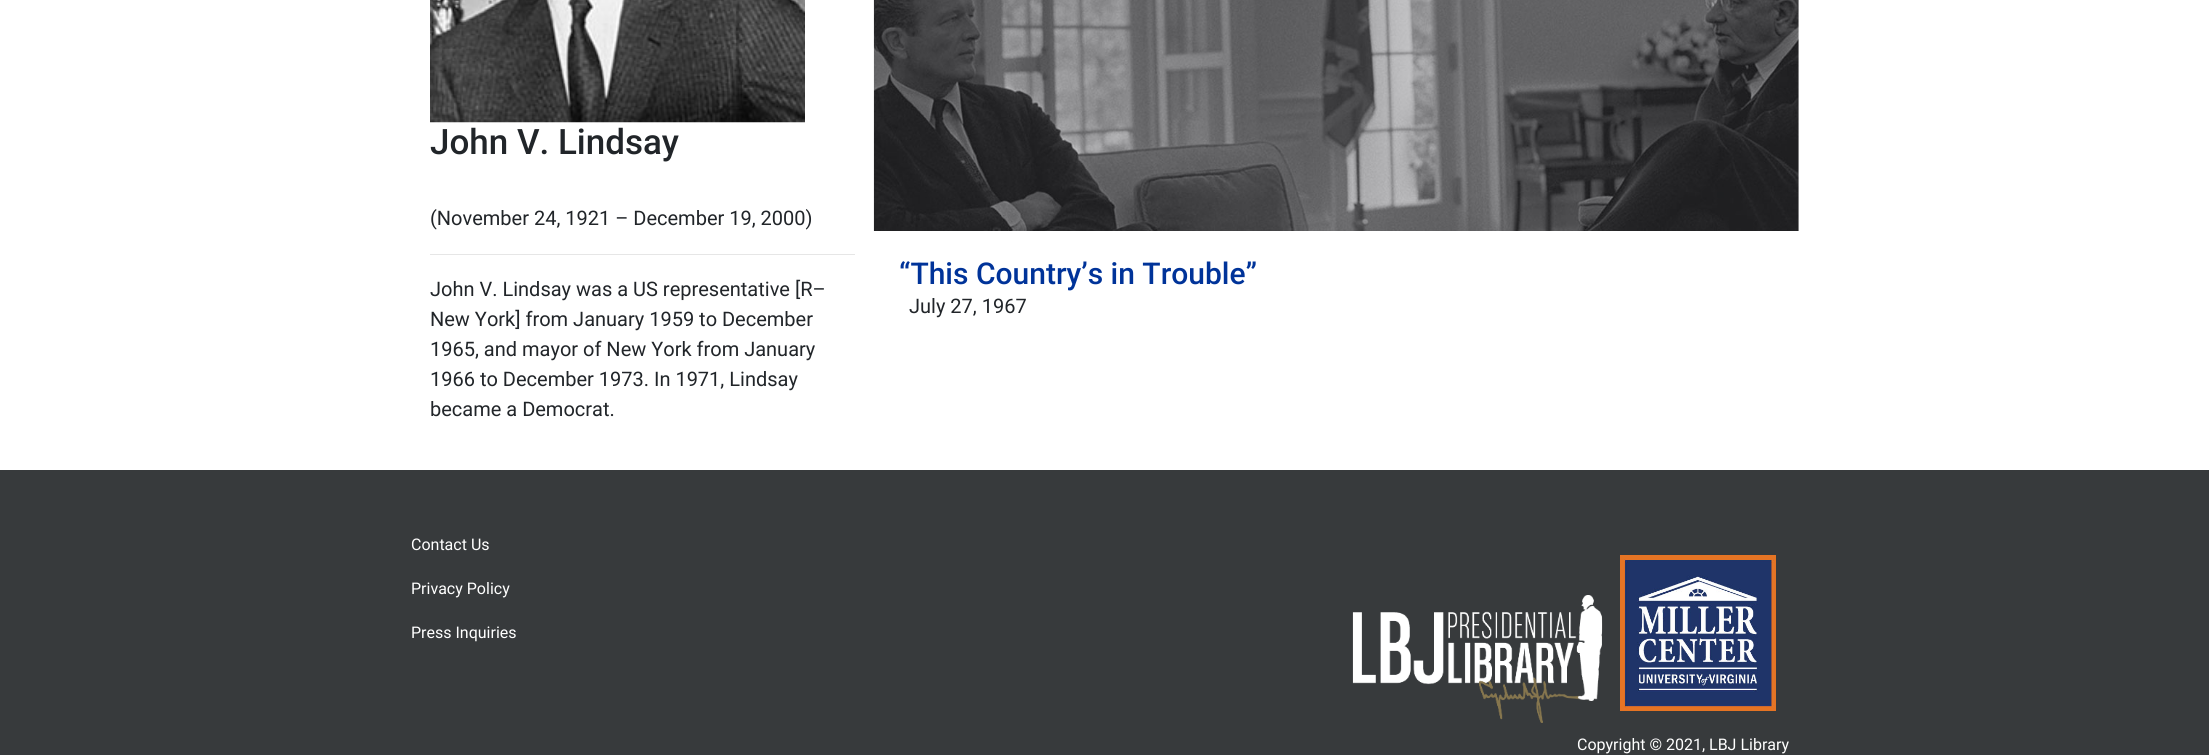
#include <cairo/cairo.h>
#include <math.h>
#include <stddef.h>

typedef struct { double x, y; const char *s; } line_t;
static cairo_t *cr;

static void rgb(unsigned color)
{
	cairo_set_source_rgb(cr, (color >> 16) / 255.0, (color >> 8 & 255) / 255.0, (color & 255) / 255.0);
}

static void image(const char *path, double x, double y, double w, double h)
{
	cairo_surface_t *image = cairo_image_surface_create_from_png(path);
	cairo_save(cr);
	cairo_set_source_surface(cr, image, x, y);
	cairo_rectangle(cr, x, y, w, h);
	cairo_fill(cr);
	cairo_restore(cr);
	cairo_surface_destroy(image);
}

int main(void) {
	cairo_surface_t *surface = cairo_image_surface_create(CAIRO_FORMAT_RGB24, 2209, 755);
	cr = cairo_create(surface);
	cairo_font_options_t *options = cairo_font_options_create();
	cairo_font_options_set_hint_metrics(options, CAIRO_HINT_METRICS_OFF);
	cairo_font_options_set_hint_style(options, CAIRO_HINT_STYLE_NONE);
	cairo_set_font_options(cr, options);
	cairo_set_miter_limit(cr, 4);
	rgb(0xffffff);
	cairo_paint(cr);
	image("img/1.png", 430, 0, 375, 123);
	rgb(0xe6e6e6);
	cairo_rectangle(cr, 430, 254, 425, 1);
	cairo_fill(cr);
	image("img/2.png", 873, 0, 926, 231);
	rgb(0x373a3c);
	cairo_rectangle(cr, 0, 470, 2209, 285);
	cairo_fill(cr);
	image("img/3.png", 1352, 595, 251, 128);
	image("img/4.png", 1620, 555, 156, 156);
	cairo_select_font_face(cr, "Roboto Medium", CAIRO_FONT_SLANT_NORMAL, CAIRO_FONT_WEIGHT_NORMAL);
	cairo_set_font_size(cr, 35);
	rgb(0x212529);
	cairo_move_to(cr, 430, 154);
	cairo_show_text(cr, "John V. Lindsay");
	cairo_select_font_face(cr, "Roboto", CAIRO_FONT_SLANT_NORMAL, CAIRO_FONT_WEIGHT_NORMAL);
	cairo_set_font_size(cr, 20);
	{
		static const line_t items[] = {
			{430, 225, "(November 24, 1921 – December 19, 2000)"},
			{430, 296, "John V. Lindsay was a US representative [R–"},
			{430, 326, "New York] from January 1959 to December"},
			{430, 356, "1965, and mayor of New York from January"},
			{430, 386, "1966 to December 1973. In 1971, Lindsay"},
			{430, 416, "became a Democrat."},
		};
		for (size_t i = 0; i < sizeof items / sizeof *items; i++) {
			cairo_move_to(cr, items[i].x, items[i].y);
			cairo_show_text(cr, items[i].s);
		}
	}
	cairo_select_font_face(cr, "Roboto Medium", CAIRO_FONT_SLANT_NORMAL, CAIRO_FONT_WEIGHT_NORMAL);
	cairo_set_font_size(cr, 30);
	rgb(0x003399);
	cairo_move_to(cr, 899, 284);
	cairo_show_text(cr, "“This Country’s in Trouble”");
	cairo_select_font_face(cr, "Roboto", CAIRO_FONT_SLANT_NORMAL, CAIRO_FONT_WEIGHT_NORMAL);
	cairo_set_font_size(cr, 20);
	rgb(0x212529);
	cairo_move_to(cr, 909, 313);
	cairo_show_text(cr, "July 27, 1967");
	cairo_set_font_size(cr, 16);
	rgb(0xffffff);
	{
		static const line_t items[] = {
			{411, 550, "Contact Us"},
			{411, 594, "Privacy Policy"},
			{411, 638, "Press Inquiries"},
			{1577, 750, "Copyright © 2021, LBJ Library"},
		};
		for (size_t i = 0; i < sizeof items / sizeof *items; i++) {
			cairo_move_to(cr, items[i].x, items[i].y);
			cairo_show_text(cr, items[i].s);
		}
	}
	cairo_surface_write_to_png(surface, "page.png");
	cairo_font_options_destroy(options);
	cairo_destroy(cr);
	cairo_surface_destroy(surface);
	return 0;
}
